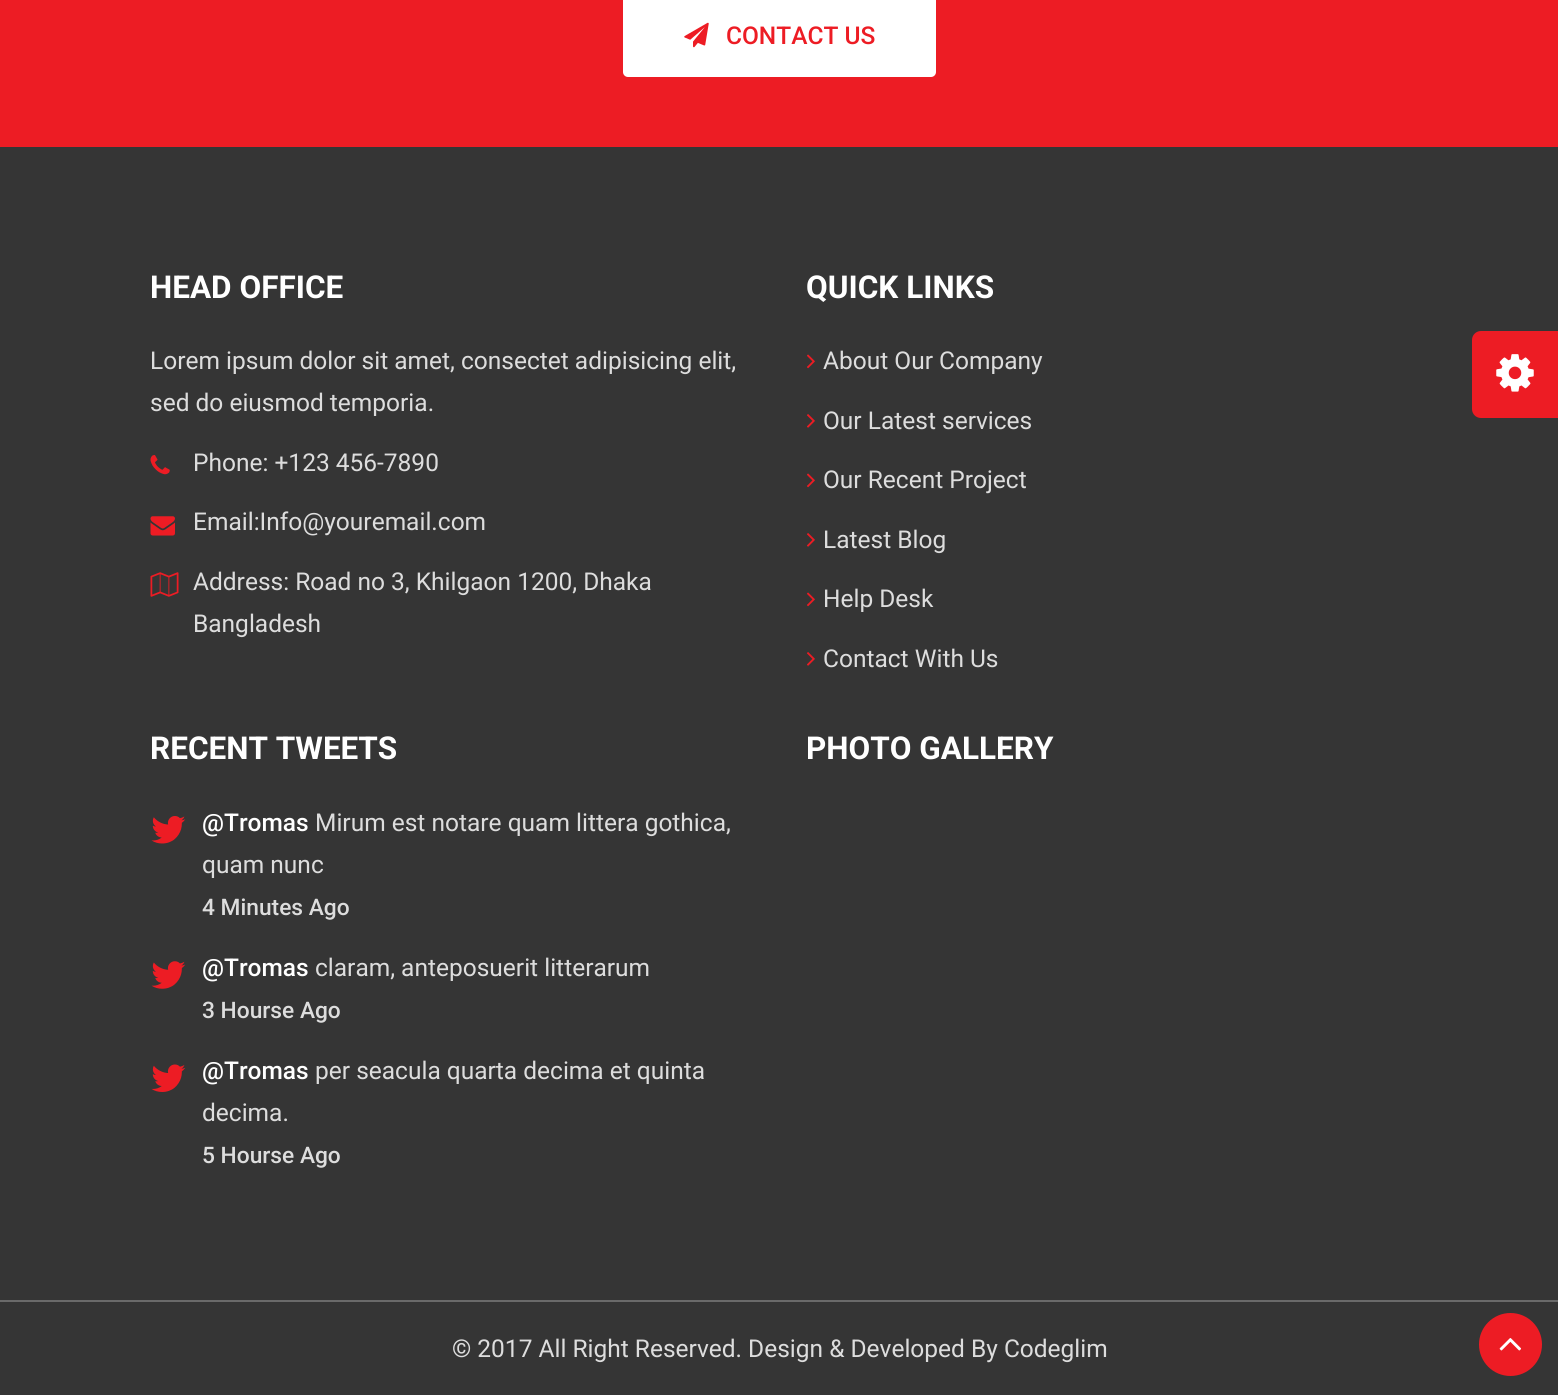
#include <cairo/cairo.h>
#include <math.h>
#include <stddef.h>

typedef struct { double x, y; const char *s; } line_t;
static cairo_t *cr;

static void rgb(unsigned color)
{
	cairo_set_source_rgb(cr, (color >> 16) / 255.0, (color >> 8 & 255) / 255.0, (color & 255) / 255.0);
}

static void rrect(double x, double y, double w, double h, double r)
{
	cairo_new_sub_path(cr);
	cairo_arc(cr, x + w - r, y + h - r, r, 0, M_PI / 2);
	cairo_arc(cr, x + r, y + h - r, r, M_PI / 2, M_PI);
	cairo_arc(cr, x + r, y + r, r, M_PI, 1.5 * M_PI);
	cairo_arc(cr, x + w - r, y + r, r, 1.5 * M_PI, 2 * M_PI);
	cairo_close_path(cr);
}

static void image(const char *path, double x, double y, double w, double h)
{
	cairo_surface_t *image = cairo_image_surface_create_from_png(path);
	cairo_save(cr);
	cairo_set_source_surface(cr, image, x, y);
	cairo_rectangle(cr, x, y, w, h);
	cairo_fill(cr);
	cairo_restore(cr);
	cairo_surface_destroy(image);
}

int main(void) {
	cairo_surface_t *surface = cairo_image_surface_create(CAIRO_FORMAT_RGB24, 1558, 1395);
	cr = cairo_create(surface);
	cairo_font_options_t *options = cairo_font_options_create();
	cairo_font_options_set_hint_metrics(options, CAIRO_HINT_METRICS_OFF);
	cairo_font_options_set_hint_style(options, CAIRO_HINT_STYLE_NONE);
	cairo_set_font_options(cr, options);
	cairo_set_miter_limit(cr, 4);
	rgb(0x353535);
	cairo_paint(cr);
	rgb(0xed1c24);
	cairo_rectangle(cr, 0, 0, 1558, 147);
	cairo_fill(cr);
	rgb(0xffffff);
	rrect(623, -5, 313, 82, 5);
	cairo_fill(cr);
	image("img/1.png", 684, 22, 25, 26);
	image("img/2.png", 150, 455, 20, 20);
	image("img/3.png", 150, 516, 25, 20);
	image("img/4.png", 150, 572, 29, 25);
	image("img/5.png", 807, 354, 8, 15);
	image("img/6.png", 807, 414, 8, 14);
	image("img/5.png", 807, 473, 8, 15);
	image("img/6.png", 807, 533, 8, 14);
	image("img/5.png", 807, 592, 8, 15);
	image("img/6.png", 807, 652, 8, 14);
	image("img/7.png", 151, 816, 35, 28);
	image("img/8.png", 151, 961, 35, 28);
	image("img/9.png", 151, 1064, 35, 28);
	rgb(0x6a6a6a);
	cairo_rectangle(cr, 0, 1300, 1558, 2);
	cairo_fill(cr);
	rgb(0xed1c24);
	cairo_new_path(cr);
	cairo_move_to(cr, 1481, 331);
	cairo_line_to(cr, 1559, 331);
	cairo_line_to(cr, 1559, 418);
	cairo_line_to(cr, 1481, 418);
	cairo_curve_to(cr, 1476, 418, 1472, 414, 1472, 409);
	cairo_line_to(cr, 1472, 340);
	cairo_curve_to(cr, 1472, 335, 1476, 331, 1481, 331);
	cairo_close_path(cr);
	cairo_fill(cr);
	image("img/10.png", 1496, 354, 38, 38);
	cairo_arc(cr, 1510.5, 1344.5, 31.5, 0, 2 * M_PI);
	cairo_fill(cr);
	image("img/11.png", 1499, 1338, 22, 13);
	cairo_select_font_face(cr, "Roboto Medium", CAIRO_FONT_SLANT_NORMAL, CAIRO_FONT_WEIGHT_NORMAL);
	cairo_set_font_size(cr, 24.5);
	cairo_move_to(cr, 726, 44);
	cairo_show_text(cr, "CONTACT US");
	cairo_select_font_face(cr, "Roboto", CAIRO_FONT_SLANT_NORMAL, CAIRO_FONT_WEIGHT_BOLD);
	cairo_set_font_size(cr, 31.5);
	rgb(0xffffff);
	cairo_move_to(cr, 150, 298);
	cairo_show_text(cr, "HEAD OFFICE");
	cairo_select_font_face(cr, "Roboto", CAIRO_FONT_SLANT_NORMAL, CAIRO_FONT_WEIGHT_NORMAL);
	cairo_set_font_size(cr, 24.5);
	rgb(0xdddddd);
	{
		static const line_t items[] = {
			{150, 369, "Lorem ipsum dolor sit amet, consectet adipisicing elit,"},
			{150, 411, "sed do eiusmod temporia."},
			{193, 471, "Phone: +123 456-7890"},
			{193, 530, "Email:Info@youremail.com"},
			{193, 590, "Address: Road no 3, Khilgaon 1200, Dhaka"},
			{193, 632, "Bangladesh"},
		};
		for (size_t i = 0; i < sizeof items / sizeof *items; i++) {
			cairo_move_to(cr, items[i].x, items[i].y);
			cairo_show_text(cr, items[i].s);
		}
	}
	cairo_select_font_face(cr, "Roboto", CAIRO_FONT_SLANT_NORMAL, CAIRO_FONT_WEIGHT_BOLD);
	cairo_set_font_size(cr, 31.5);
	rgb(0xffffff);
	cairo_move_to(cr, 806, 298);
	cairo_show_text(cr, "QUICK LINKS");
	cairo_select_font_face(cr, "Roboto", CAIRO_FONT_SLANT_NORMAL, CAIRO_FONT_WEIGHT_NORMAL);
	cairo_set_font_size(cr, 24.5);
	rgb(0xdddddd);
	{
		static const line_t items[] = {
			{823, 369, "About Our Company"},
			{823, 429, "Our Latest services"},
			{823, 488, "Our Recent Project"},
			{823, 548, "Latest Blog"},
			{823, 607, "Help Desk"},
			{823, 667, "Contact With Us"},
		};
		for (size_t i = 0; i < sizeof items / sizeof *items; i++) {
			cairo_move_to(cr, items[i].x, items[i].y);
			cairo_show_text(cr, items[i].s);
		}
	}
	cairo_select_font_face(cr, "Roboto", CAIRO_FONT_SLANT_NORMAL, CAIRO_FONT_WEIGHT_BOLD);
	cairo_set_font_size(cr, 31.5);
	rgb(0xffffff);
	cairo_move_to(cr, 150, 759);
	cairo_show_text(cr, "RECENT TWEETS");
	cairo_select_font_face(cr, "Roboto Medium", CAIRO_FONT_SLANT_NORMAL, CAIRO_FONT_WEIGHT_NORMAL);
	cairo_set_font_size(cr, 24.5);
	cairo_move_to(cr, 202, 831);
	cairo_show_text(cr, "@Tromas");
	cairo_select_font_face(cr, "Roboto", CAIRO_FONT_SLANT_NORMAL, CAIRO_FONT_WEIGHT_NORMAL);
	rgb(0xdddddd);
	cairo_move_to(cr, 315, 831);
	cairo_show_text(cr, "Mirum est notare quam littera gothica,");
	cairo_move_to(cr, 202, 873);
	cairo_show_text(cr, "quam nunc");
	cairo_select_font_face(cr, "Roboto Medium", CAIRO_FONT_SLANT_NORMAL, CAIRO_FONT_WEIGHT_NORMAL);
	cairo_set_font_size(cr, 22.75);
	cairo_move_to(cr, 202, 915);
	cairo_show_text(cr, "4 Minutes Ago");
	cairo_set_font_size(cr, 24.5);
	rgb(0xffffff);
	cairo_move_to(cr, 202, 976);
	cairo_show_text(cr, "@Tromas");
	cairo_select_font_face(cr, "Roboto", CAIRO_FONT_SLANT_NORMAL, CAIRO_FONT_WEIGHT_NORMAL);
	rgb(0xdddddd);
	cairo_move_to(cr, 315, 976);
	cairo_show_text(cr, "claram, anteposuerit litterarum");
	cairo_select_font_face(cr, "Roboto Medium", CAIRO_FONT_SLANT_NORMAL, CAIRO_FONT_WEIGHT_NORMAL);
	cairo_set_font_size(cr, 22.75);
	cairo_move_to(cr, 202, 1018);
	cairo_show_text(cr, "3 Hourse Ago");
	cairo_set_font_size(cr, 24.5);
	rgb(0xffffff);
	cairo_move_to(cr, 202, 1079);
	cairo_show_text(cr, "@Tromas");
	cairo_select_font_face(cr, "Roboto", CAIRO_FONT_SLANT_NORMAL, CAIRO_FONT_WEIGHT_NORMAL);
	rgb(0xdddddd);
	cairo_move_to(cr, 315, 1079);
	cairo_show_text(cr, "per seacula quarta decima et quinta");
	cairo_move_to(cr, 202, 1121);
	cairo_show_text(cr, "decima.");
	cairo_select_font_face(cr, "Roboto Medium", CAIRO_FONT_SLANT_NORMAL, CAIRO_FONT_WEIGHT_NORMAL);
	cairo_set_font_size(cr, 22.75);
	cairo_move_to(cr, 202, 1163);
	cairo_show_text(cr, "5 Hourse Ago");
	cairo_select_font_face(cr, "Roboto", CAIRO_FONT_SLANT_NORMAL, CAIRO_FONT_WEIGHT_BOLD);
	cairo_set_font_size(cr, 31.5);
	rgb(0xffffff);
	cairo_move_to(cr, 806, 759);
	cairo_show_text(cr, "PHOTO GALLERY");
	cairo_select_font_face(cr, "Roboto", CAIRO_FONT_SLANT_NORMAL, CAIRO_FONT_WEIGHT_NORMAL);
	cairo_set_font_size(cr, 24.5);
	rgb(0xdddddd);
	cairo_move_to(cr, 452, 1357);
	cairo_show_text(cr, "© 2017 All Right Reserved. Design & Developed By Codeglim");
	cairo_surface_write_to_png(surface, "page.png");
	cairo_font_options_destroy(options);
	cairo_destroy(cr);
	cairo_surface_destroy(surface);
	return 0;
}
